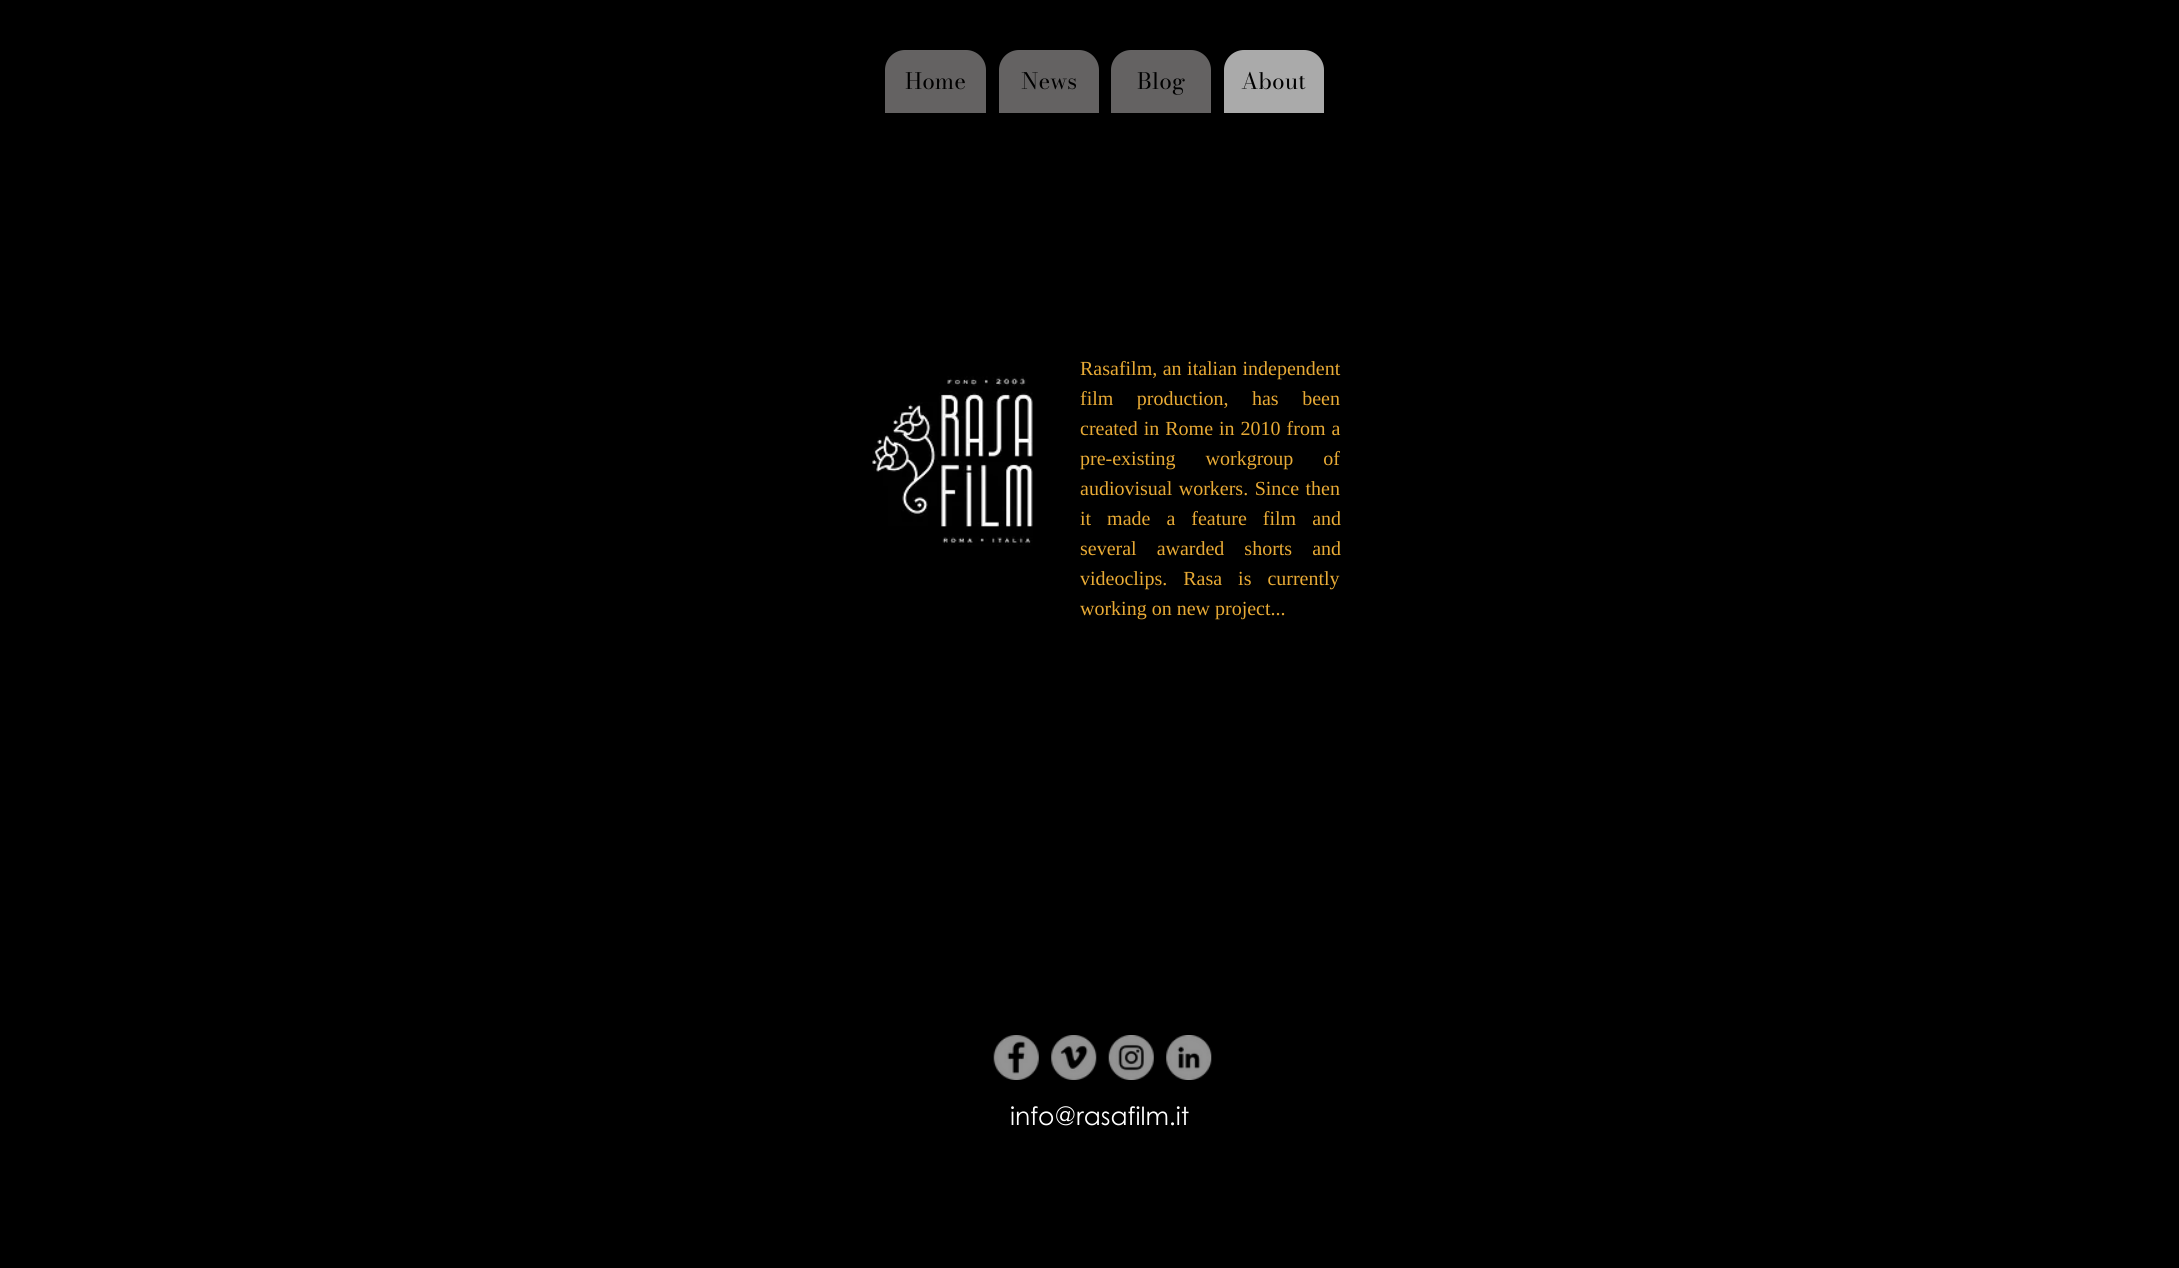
#include <cairo/cairo.h>
#include <math.h>
#include <stddef.h>

typedef struct { double x, y; const char *s; } line_t;
static cairo_t *cr;

static void rgb(unsigned color)
{
	cairo_set_source_rgb(cr, (color >> 16) / 255.0, (color >> 8 & 255) / 255.0, (color & 255) / 255.0);
}

static void tracked(double x, double y, const char *s, double letter, double word)
{
	cairo_move_to(cr, x, y);
	while (*s) {
		char ch[5] = {0};
		int n = 0;
		do ch[n++] = *s++; while ((*s & 0xC0) == 0x80);
		cairo_show_text(cr, ch);
		cairo_rel_move_to(cr, letter + word * (*ch == ' '), 0);
	}
}

static void image(const char *path, double x, double y, double w, double h)
{
	cairo_surface_t *image = cairo_image_surface_create_from_png(path);
	cairo_save(cr);
	cairo_set_source_surface(cr, image, x, y);
	cairo_rectangle(cr, x, y, w, h);
	cairo_fill(cr);
	cairo_restore(cr);
	cairo_surface_destroy(image);
}

int main(void) {
	cairo_surface_t *surface = cairo_image_surface_create(CAIRO_FORMAT_RGB24, 2179, 1268);
	cr = cairo_create(surface);
	cairo_font_options_t *options = cairo_font_options_create();
	cairo_font_options_set_hint_metrics(options, CAIRO_HINT_METRICS_OFF);
	cairo_font_options_set_hint_style(options, CAIRO_HINT_STYLE_NONE);
	cairo_set_font_options(cr, options);
	cairo_set_miter_limit(cr, 4);
	rgb(0x000000);
	cairo_paint(cr);
	rgb(0x646262);
	cairo_new_path(cr);
	cairo_move_to(cr, 905, 50);
	cairo_line_to(cr, 966, 50);
	cairo_curve_to(cr, 977, 50, 986, 59, 986, 70);
	cairo_line_to(cr, 986, 113);
	cairo_line_to(cr, 885, 113);
	cairo_line_to(cr, 885, 70);
	cairo_curve_to(cr, 885, 59, 894, 50, 905, 50);
	cairo_close_path(cr);
	cairo_fill(cr);
	cairo_new_path(cr);
	cairo_move_to(cr, 1019, 50);
	cairo_line_to(cr, 1079, 50);
	cairo_curve_to(cr, 1090, 50, 1099, 59, 1099, 70);
	cairo_line_to(cr, 1099, 113);
	cairo_line_to(cr, 999, 113);
	cairo_line_to(cr, 999, 70);
	cairo_curve_to(cr, 999, 59, 1008, 50, 1019, 50);
	cairo_close_path(cr);
	cairo_fill(cr);
	cairo_new_path(cr);
	cairo_move_to(cr, 1131, 50);
	cairo_line_to(cr, 1191, 50);
	cairo_curve_to(cr, 1202, 50, 1211, 59, 1211, 70);
	cairo_line_to(cr, 1211, 113);
	cairo_line_to(cr, 1111, 113);
	cairo_line_to(cr, 1111, 70);
	cairo_curve_to(cr, 1111, 59, 1120, 50, 1131, 50);
	cairo_close_path(cr);
	cairo_fill(cr);
	rgb(0xaaaaaa);
	cairo_new_path(cr);
	cairo_move_to(cr, 1244, 50);
	cairo_line_to(cr, 1304, 50);
	cairo_curve_to(cr, 1315, 50, 1324, 59, 1324, 70);
	cairo_line_to(cr, 1324, 113);
	cairo_line_to(cr, 1224, 113);
	cairo_line_to(cr, 1224, 70);
	cairo_curve_to(cr, 1224, 59, 1233, 50, 1244, 50);
	cairo_close_path(cr);
	cairo_fill(cr);
	image("img/1.png", 872, 376, 161, 170);
	image("img/2.png", 993, 1035, 46, 45);
	image("img/3.png", 1051, 1035, 46, 45);
	image("img/4.png", 1108, 1035, 46, 45);
	image("img/5.png", 1166, 1035, 46, 45);
	cairo_select_font_face(cr, "Bodoni Moda", CAIRO_FONT_SLANT_NORMAL, CAIRO_FONT_WEIGHT_NORMAL);
	cairo_set_font_size(cr, 22.5);
	rgb(0x000000);
	{
		static const line_t items[] = {
			{905, 89, "Home"},
			{1021, 89, "News"},
			{1137, 89, "Blog"},
			{1241, 89, "About"},
		};
		for (size_t i = 0; i < sizeof items / sizeof *items; i++) {
			cairo_move_to(cr, items[i].x, items[i].y);
			cairo_show_text(cr, items[i].s);
		}
	}
	cairo_select_font_face(cr, "Liberation Serif", CAIRO_FONT_SLANT_NORMAL, CAIRO_FONT_WEIGHT_NORMAL);
	cairo_set_font_size(cr, 20);
	rgb(0xe8aa35);
	tracked(1080, 375, "Rasafilm, an italian independent", 0, 0.5);
	tracked(1080, 405, "film production, has been", 0, 18.5);
	tracked(1080, 435, "created in Rome in 2010 from a", 0, 1);
	tracked(1080, 465, "pre-existing workgroup of", 0, 25);
	tracked(1080, 495, "audiovisual workers. Since then", 0, 1.5);
	tracked(1080, 525, "it made a feature film and", 0, 11);
	tracked(1080, 555, "several awarded shorts and", 0, 15);
	tracked(1080, 585, "videoclips. Rasa is currently", 0, 11);
	cairo_move_to(cr, 1080, 615);
	cairo_show_text(cr, "working on new project...");
	cairo_select_font_face(cr, "Century Gothic", CAIRO_FONT_SLANT_NORMAL, CAIRO_FONT_WEIGHT_NORMAL);
	cairo_set_font_size(cr, 25);
	rgb(0xffffff);
	cairo_move_to(cr, 1010, 1125);
	cairo_show_text(cr, "info@rasafilm.it");
	cairo_surface_write_to_png(surface, "page.png");
	cairo_font_options_destroy(options);
	cairo_destroy(cr);
	cairo_surface_destroy(surface);
	return 0;
}
